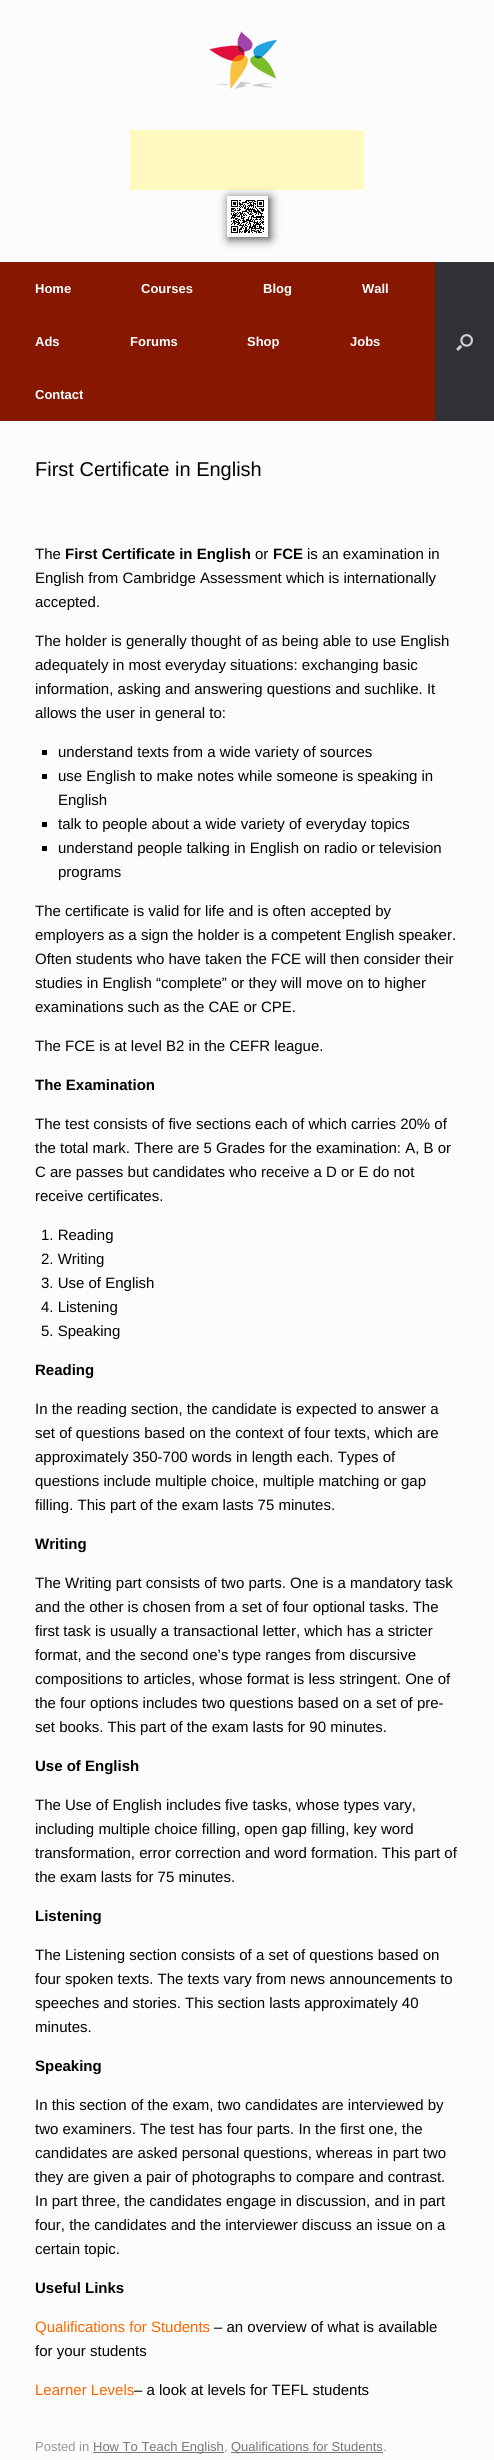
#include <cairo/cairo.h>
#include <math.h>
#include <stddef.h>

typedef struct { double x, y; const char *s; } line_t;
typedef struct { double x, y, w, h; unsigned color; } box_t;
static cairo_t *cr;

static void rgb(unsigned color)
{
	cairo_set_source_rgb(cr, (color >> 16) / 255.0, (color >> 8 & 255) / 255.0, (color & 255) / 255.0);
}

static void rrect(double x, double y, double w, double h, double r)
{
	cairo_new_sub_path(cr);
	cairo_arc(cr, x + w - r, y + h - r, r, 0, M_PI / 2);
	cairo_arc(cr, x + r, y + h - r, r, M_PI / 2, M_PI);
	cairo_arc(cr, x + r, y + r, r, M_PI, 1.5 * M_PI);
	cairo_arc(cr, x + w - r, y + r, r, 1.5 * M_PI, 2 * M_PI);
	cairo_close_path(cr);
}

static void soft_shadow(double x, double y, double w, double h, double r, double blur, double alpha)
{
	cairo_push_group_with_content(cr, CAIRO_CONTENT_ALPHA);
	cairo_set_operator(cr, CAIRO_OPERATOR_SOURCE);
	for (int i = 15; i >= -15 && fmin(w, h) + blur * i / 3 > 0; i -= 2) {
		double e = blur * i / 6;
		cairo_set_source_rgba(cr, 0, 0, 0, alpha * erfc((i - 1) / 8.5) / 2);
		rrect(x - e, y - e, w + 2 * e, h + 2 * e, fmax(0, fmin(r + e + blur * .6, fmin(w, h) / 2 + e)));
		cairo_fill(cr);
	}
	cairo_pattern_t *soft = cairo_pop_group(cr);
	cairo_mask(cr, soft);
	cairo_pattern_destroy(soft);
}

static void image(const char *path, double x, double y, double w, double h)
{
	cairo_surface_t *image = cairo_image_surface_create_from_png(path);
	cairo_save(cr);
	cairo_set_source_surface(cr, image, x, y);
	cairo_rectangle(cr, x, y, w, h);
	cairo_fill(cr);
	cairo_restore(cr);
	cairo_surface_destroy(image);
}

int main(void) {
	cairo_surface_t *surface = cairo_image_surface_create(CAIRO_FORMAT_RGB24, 494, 2460);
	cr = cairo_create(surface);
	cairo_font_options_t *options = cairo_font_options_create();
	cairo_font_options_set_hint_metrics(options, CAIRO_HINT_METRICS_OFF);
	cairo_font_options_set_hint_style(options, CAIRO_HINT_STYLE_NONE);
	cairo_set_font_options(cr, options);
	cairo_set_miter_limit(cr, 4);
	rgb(0xfcfcfc);
	cairo_paint(cr);
	image("img/1.png", 209, 31, 69, 59);
	rgb(0xfff9c0);
	cairo_rectangle(cr, 130, 130, 234, 60);
	cairo_fill(cr);
	cairo_save(cr);
	cairo_set_fill_rule(cr, CAIRO_FILL_RULE_EVEN_ODD);
	cairo_new_path(cr);
	cairo_move_to(cr, 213, 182);
	cairo_line_to(cr, 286, 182);
	cairo_line_to(cr, 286, 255);
	cairo_line_to(cr, 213, 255);
	cairo_close_path(cr);
	cairo_move_to(cr, 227, 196);
	cairo_line_to(cr, 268, 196);
	cairo_line_to(cr, 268, 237);
	cairo_line_to(cr, 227, 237);
	cairo_close_path(cr);
	cairo_clip(cr);
	rgb(0x4a4242);
	soft_shadow(229, 198, 41, 41, 0, 5, 1);
	cairo_restore(cr);
	image("img/2.png", 231, 200, 33, 33);
	rgb(0x871701);
	cairo_rectangle(cr, 0, 262, 435, 159);
	cairo_fill(cr);
	rgb(0x303134);
	cairo_rectangle(cr, 435, 262, 59, 159);
	cairo_fill(cr);
	image("img/3.png", 456, 334, 17, 17);
	{
		static const box_t items[] = {
			{42, 750, 5, 5, 0x000000},
			{42, 774, 5, 5, 0x000000},
			{42, 822, 5, 5, 0x000000},
			{42, 846, 5, 5, 0x000000},
			{93, 2452, 131, 1, 0x777777},
			{231, 2452, 152, 1, 0x777777},
		};
		for (size_t i = 0; i < sizeof items / sizeof *items; i++) {
			rgb(items[i].color);
			cairo_rectangle(cr, items[i].x, items[i].y, items[i].w, items[i].h);
			cairo_fill(cr);
		}
	}
	cairo_select_font_face(cr, "Liberation Sans", CAIRO_FONT_SLANT_NORMAL, CAIRO_FONT_WEIGHT_BOLD);
	cairo_set_font_size(cr, 13);
	rgb(0xffffff);
	{
		static const line_t items[] = {
			{35, 293, "Home"},
			{141, 293, "Courses"},
			{263, 293, "Blog"},
			{362, 293, "Wall"},
			{35, 346, "Ads"},
			{130, 346, "Forums"},
			{247, 346, "Shop"},
			{350, 346, "Jobs"},
			{35, 399, "Contact"},
		};
		for (size_t i = 0; i < sizeof items / sizeof *items; i++) {
			cairo_move_to(cr, items[i].x, items[i].y);
			cairo_show_text(cr, items[i].s);
		}
	}
	cairo_select_font_face(cr, "Liberation Sans", CAIRO_FONT_SLANT_NORMAL, CAIRO_FONT_WEIGHT_NORMAL);
	cairo_set_font_size(cr, 20);
	rgb(0x000000);
	cairo_move_to(cr, 35, 476);
	cairo_show_text(cr, "First Certificate in English");
	cairo_set_font_size(cr, 15);
	cairo_move_to(cr, 35, 559);
	cairo_show_text(cr, "The");
	cairo_select_font_face(cr, "Liberation Sans", CAIRO_FONT_SLANT_NORMAL, CAIRO_FONT_WEIGHT_BOLD);
	cairo_move_to(cr, 65, 559);
	cairo_show_text(cr, "First Certificate in English");
	cairo_select_font_face(cr, "Liberation Sans", CAIRO_FONT_SLANT_NORMAL, CAIRO_FONT_WEIGHT_NORMAL);
	cairo_move_to(cr, 255, 559);
	cairo_show_text(cr, "or");
	cairo_select_font_face(cr, "Liberation Sans", CAIRO_FONT_SLANT_NORMAL, CAIRO_FONT_WEIGHT_BOLD);
	cairo_move_to(cr, 273, 559);
	cairo_show_text(cr, "FCE");
	cairo_select_font_face(cr, "Liberation Sans", CAIRO_FONT_SLANT_NORMAL, CAIRO_FONT_WEIGHT_NORMAL);
	{
		static const line_t items[] = {
			{307, 559, "is an examination in"},
			{35, 583, "English from Cambridge Assessment which is internationally"},
			{35, 607, "accepted."},
			{35, 646, "The holder is generally thought of as being able to use English"},
			{35, 670, "adequately in most everyday situations: exchanging basic"},
			{35, 694, "information, asking and answering questions and suchlike. It"},
			{35, 718, "allows the user in general to:"},
			{58, 757, "understand texts from a wide variety of sources"},
			{58, 781, "use English to make notes while someone is speaking in"},
			{58, 805, "English"},
			{58, 829, "talk to people about a wide variety of everyday topics"},
			{58, 853, "understand people talking in English on radio or television"},
			{58, 877, "programs"},
			{35, 916, "The certificate is valid for life and is often accepted by"},
			{35, 940, "employers as a sign the holder is a competent English speaker."},
			{35, 964, "Often students who have taken the FCE will then consider their"},
			{35, 988, "studies in English “complete” or they will move on to higher"},
			{35, 1012, "examinations such as the CAE or CPE."},
			{35, 1051, "The FCE is at level B2 in the CEFR league."},
		};
		for (size_t i = 0; i < sizeof items / sizeof *items; i++) {
			cairo_move_to(cr, items[i].x, items[i].y);
			cairo_show_text(cr, items[i].s);
		}
	}
	cairo_select_font_face(cr, "Liberation Sans", CAIRO_FONT_SLANT_NORMAL, CAIRO_FONT_WEIGHT_BOLD);
	cairo_move_to(cr, 35, 1090);
	cairo_show_text(cr, "The Examination");
	cairo_select_font_face(cr, "Liberation Sans", CAIRO_FONT_SLANT_NORMAL, CAIRO_FONT_WEIGHT_NORMAL);
	{
		static const line_t items[] = {
			{35, 1129, "The test consists of five sections each of which carries 20% of"},
			{35, 1153, "the total mark. There are 5 Grades for the examination: A, B or"},
			{35, 1177, "C are passes but candidates who receive a D or E do not"},
			{35, 1201, "receive certificates."},
			{41, 1240, "1. Reading"},
			{41, 1264, "2. Writing"},
			{41, 1288, "3. Use of English"},
			{41, 1312, "4. Listening"},
			{41, 1336, "5. Speaking"},
		};
		for (size_t i = 0; i < sizeof items / sizeof *items; i++) {
			cairo_move_to(cr, items[i].x, items[i].y);
			cairo_show_text(cr, items[i].s);
		}
	}
	cairo_select_font_face(cr, "Liberation Sans", CAIRO_FONT_SLANT_NORMAL, CAIRO_FONT_WEIGHT_BOLD);
	cairo_move_to(cr, 35, 1375);
	cairo_show_text(cr, "Reading");
	cairo_select_font_face(cr, "Liberation Sans", CAIRO_FONT_SLANT_NORMAL, CAIRO_FONT_WEIGHT_NORMAL);
	{
		static const line_t items[] = {
			{35, 1414, "In the reading section, the candidate is expected to answer a"},
			{35, 1438, "set of questions based on the context of four texts, which are"},
			{35, 1462, "approximately 350-700 words in length each. Types of"},
			{35, 1486, "questions include multiple choice, multiple matching or gap"},
			{35, 1510, "filling. This part of the exam lasts 75 minutes."},
		};
		for (size_t i = 0; i < sizeof items / sizeof *items; i++) {
			cairo_move_to(cr, items[i].x, items[i].y);
			cairo_show_text(cr, items[i].s);
		}
	}
	cairo_select_font_face(cr, "Liberation Sans", CAIRO_FONT_SLANT_NORMAL, CAIRO_FONT_WEIGHT_BOLD);
	cairo_move_to(cr, 35, 1549);
	cairo_show_text(cr, "Writing");
	cairo_select_font_face(cr, "Liberation Sans", CAIRO_FONT_SLANT_NORMAL, CAIRO_FONT_WEIGHT_NORMAL);
	{
		static const line_t items[] = {
			{35, 1588, "The Writing part consists of two parts. One is a mandatory task"},
			{35, 1612, "and the other is chosen from a set of four optional tasks. The"},
			{35, 1636, "first task is usually a transactional letter, which has a stricter"},
			{35, 1660, "format, and the second one’s type ranges from discursive"},
			{35, 1684, "compositions to articles, whose format is less stringent. One of"},
			{35, 1708, "the four options includes two questions based on a set of pre-"},
			{35, 1732, "set books. This part of the exam lasts for 90 minutes."},
		};
		for (size_t i = 0; i < sizeof items / sizeof *items; i++) {
			cairo_move_to(cr, items[i].x, items[i].y);
			cairo_show_text(cr, items[i].s);
		}
	}
	cairo_select_font_face(cr, "Liberation Sans", CAIRO_FONT_SLANT_NORMAL, CAIRO_FONT_WEIGHT_BOLD);
	cairo_move_to(cr, 35, 1771);
	cairo_show_text(cr, "Use of English");
	cairo_select_font_face(cr, "Liberation Sans", CAIRO_FONT_SLANT_NORMAL, CAIRO_FONT_WEIGHT_NORMAL);
	{
		static const line_t items[] = {
			{35, 1810, "The Use of English includes five tasks, whose types vary,"},
			{35, 1834, "including multiple choice filling, open gap filling, key word"},
			{35, 1858, "transformation, error correction and word formation. This part of"},
			{35, 1882, "the exam lasts for 75 minutes."},
		};
		for (size_t i = 0; i < sizeof items / sizeof *items; i++) {
			cairo_move_to(cr, items[i].x, items[i].y);
			cairo_show_text(cr, items[i].s);
		}
	}
	cairo_select_font_face(cr, "Liberation Sans", CAIRO_FONT_SLANT_NORMAL, CAIRO_FONT_WEIGHT_BOLD);
	cairo_move_to(cr, 35, 1921);
	cairo_show_text(cr, "Listening");
	cairo_select_font_face(cr, "Liberation Sans", CAIRO_FONT_SLANT_NORMAL, CAIRO_FONT_WEIGHT_NORMAL);
	{
		static const line_t items[] = {
			{35, 1960, "The Listening section consists of a set of questions based on"},
			{35, 1984, "four spoken texts. The texts vary from news announcements to"},
			{35, 2008, "speeches and stories. This section lasts approximately 40"},
			{35, 2032, "minutes."},
		};
		for (size_t i = 0; i < sizeof items / sizeof *items; i++) {
			cairo_move_to(cr, items[i].x, items[i].y);
			cairo_show_text(cr, items[i].s);
		}
	}
	cairo_select_font_face(cr, "Liberation Sans", CAIRO_FONT_SLANT_NORMAL, CAIRO_FONT_WEIGHT_BOLD);
	cairo_move_to(cr, 35, 2071);
	cairo_show_text(cr, "Speaking");
	cairo_select_font_face(cr, "Liberation Sans", CAIRO_FONT_SLANT_NORMAL, CAIRO_FONT_WEIGHT_NORMAL);
	{
		static const line_t items[] = {
			{35, 2110, "In this section of the exam, two candidates are interviewed by"},
			{35, 2134, "two examiners. The test has four parts. In the first one, the"},
			{35, 2158, "candidates are asked personal questions, whereas in part two"},
			{35, 2182, "they are given a pair of photographs to compare and contrast."},
			{35, 2206, "In part three, the candidates engage in discussion, and in part"},
			{35, 2230, "four, the candidates and the interviewer discuss an issue on a"},
			{35, 2254, "certain topic."},
		};
		for (size_t i = 0; i < sizeof items / sizeof *items; i++) {
			cairo_move_to(cr, items[i].x, items[i].y);
			cairo_show_text(cr, items[i].s);
		}
	}
	cairo_select_font_face(cr, "Liberation Sans", CAIRO_FONT_SLANT_NORMAL, CAIRO_FONT_WEIGHT_BOLD);
	cairo_move_to(cr, 35, 2293);
	cairo_show_text(cr, "Useful Links");
	cairo_select_font_face(cr, "Liberation Sans", CAIRO_FONT_SLANT_NORMAL, CAIRO_FONT_WEIGHT_NORMAL);
	rgb(0xff6600);
	cairo_move_to(cr, 35, 2332);
	cairo_show_text(cr, "Qualifications for Students");
	rgb(0x000000);
	cairo_move_to(cr, 214, 2332);
	cairo_show_text(cr, "– an overview of what is available");
	cairo_move_to(cr, 35, 2356);
	cairo_show_text(cr, "for your students");
	rgb(0xff6600);
	cairo_move_to(cr, 35, 2395);
	cairo_show_text(cr, "Learner Levels");
	rgb(0x000000);
	cairo_move_to(cr, 134, 2395);
	cairo_show_text(cr, "– a look at levels for TEFL students");
	cairo_set_font_size(cr, 13);
	rgb(0x999999);
	cairo_move_to(cr, 35, 2451);
	cairo_show_text(cr, "Posted in");
	rgb(0x777777);
	cairo_move_to(cr, 93, 2451);
	cairo_show_text(cr, "How To Teach English");
	rgb(0x999999);
	cairo_move_to(cr, 224, 2451);
	cairo_show_text(cr, ",");
	rgb(0x777777);
	cairo_move_to(cr, 231, 2451);
	cairo_show_text(cr, "Qualifications for Students");
	rgb(0x999999);
	cairo_move_to(cr, 383, 2451);
	cairo_show_text(cr, ".");
	cairo_surface_write_to_png(surface, "page.png");
	cairo_font_options_destroy(options);
	cairo_destroy(cr);
	cairo_surface_destroy(surface);
	return 0;
}
